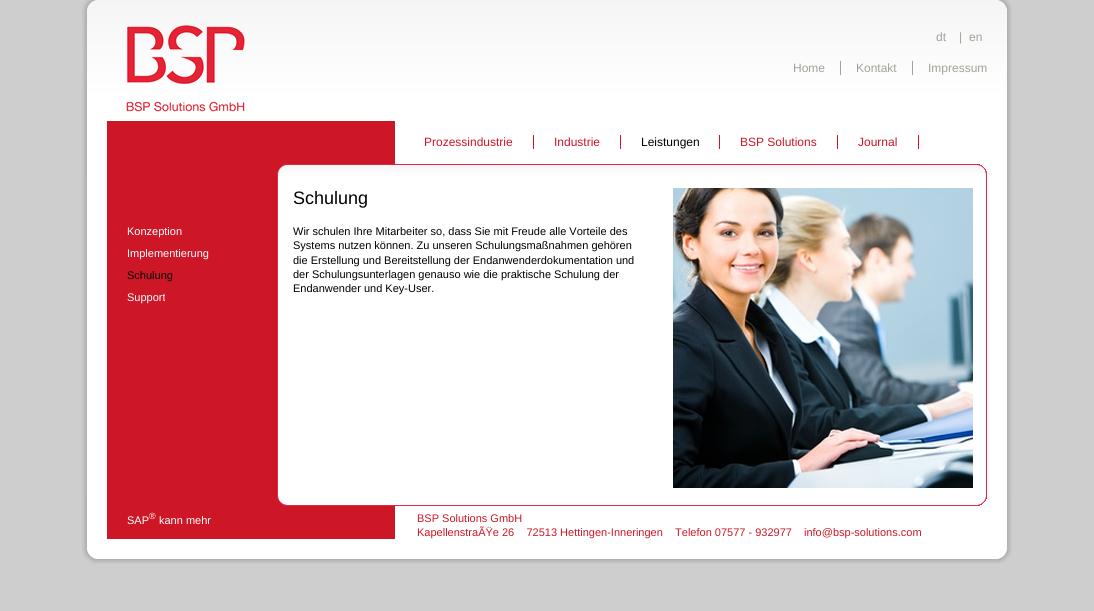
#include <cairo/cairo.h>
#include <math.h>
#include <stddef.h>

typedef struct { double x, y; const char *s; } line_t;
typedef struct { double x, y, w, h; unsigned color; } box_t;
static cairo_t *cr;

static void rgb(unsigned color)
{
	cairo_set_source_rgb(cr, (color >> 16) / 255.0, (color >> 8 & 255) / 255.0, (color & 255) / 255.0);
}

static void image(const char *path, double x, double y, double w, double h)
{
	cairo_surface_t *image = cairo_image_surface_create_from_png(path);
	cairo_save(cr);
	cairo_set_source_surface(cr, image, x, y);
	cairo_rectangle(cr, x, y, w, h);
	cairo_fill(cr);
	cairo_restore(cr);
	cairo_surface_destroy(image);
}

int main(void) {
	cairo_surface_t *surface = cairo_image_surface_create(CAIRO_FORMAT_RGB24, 1094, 611);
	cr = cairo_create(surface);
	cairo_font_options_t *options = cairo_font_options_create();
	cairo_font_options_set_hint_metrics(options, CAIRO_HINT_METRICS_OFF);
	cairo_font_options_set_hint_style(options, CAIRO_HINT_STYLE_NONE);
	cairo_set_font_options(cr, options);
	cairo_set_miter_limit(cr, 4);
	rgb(0xcecece);
	cairo_paint(cr);
	image("img/1.png", 82, 0, 930, 178);
	image("img/2.png", 126, 25, 119, 87);
	{
		static const box_t items[] = {
			{840, 61, 1, 14, 0xa0a397},
			{912, 61, 1, 14, 0xa0a397},
			{533, 135, 1, 14, 0xcd1727},
			{620, 135, 1, 14, 0xcd1727},
			{719, 135, 1, 14, 0xcd1727},
			{837, 135, 1, 14, 0xcd1727},
			{918, 135, 1, 14, 0xcd1727},
		};
		for (size_t i = 0; i < sizeof items / sizeof *items; i++) {
			rgb(items[i].color);
			cairo_rectangle(cr, items[i].x, items[i].y, items[i].w, items[i].h);
			cairo_fill(cr);
		}
	}
	image("img/3.png", 77, 178, 940, 317);
	image("img/4.png", 673, 188, 300, 300);
	image("img/5.png", 82, 495, 930, 69);
	cairo_select_font_face(cr, "Liberation Sans", CAIRO_FONT_SLANT_NORMAL, CAIRO_FONT_WEIGHT_NORMAL);
	cairo_set_font_size(cr, 12);
	rgb(0xa0a397);
	{
		static const line_t items[] = {
			{936, 41, "dt"},
			{959, 41, "|"},
			{969, 41, "en"},
			{793, 72, "Home"},
			{856, 72, "Kontakt"},
			{928, 72, "Impressum"},
		};
		for (size_t i = 0; i < sizeof items / sizeof *items; i++) {
			cairo_move_to(cr, items[i].x, items[i].y);
			cairo_show_text(cr, items[i].s);
		}
	}
	rgb(0xcd1727);
	cairo_move_to(cr, 424, 146);
	cairo_show_text(cr, "Prozessindustrie");
	cairo_move_to(cr, 554, 146);
	cairo_show_text(cr, "Industrie");
	rgb(0x000000);
	cairo_move_to(cr, 641, 146);
	cairo_show_text(cr, "Leistungen");
	rgb(0xcd1727);
	cairo_move_to(cr, 740, 146);
	cairo_show_text(cr, "BSP Solutions");
	cairo_move_to(cr, 858, 146);
	cairo_show_text(cr, "Journal");
	cairo_set_font_size(cr, 11);
	rgb(0xffffff);
	cairo_move_to(cr, 127, 235);
	cairo_show_text(cr, "Konzeption");
	cairo_move_to(cr, 127, 257);
	cairo_show_text(cr, "Implementierung");
	rgb(0x000000);
	cairo_move_to(cr, 127, 279);
	cairo_show_text(cr, "Schulung");
	rgb(0xffffff);
	cairo_move_to(cr, 127, 301);
	cairo_show_text(cr, "Support");
	cairo_set_font_size(cr, 18);
	rgb(0x000000);
	cairo_move_to(cr, 293, 204);
	cairo_show_text(cr, "Schulung");
	cairo_set_font_size(cr, 11);
	{
		static const line_t items[] = {
			{293, 235, "Wir schulen Ihre Mitarbeiter so, dass Sie mit Freude alle Vorteile des"},
			{293, 249, "Systems nutzen können. Zu unseren Schulungsmaßnahmen gehören"},
			{293, 264, "die Erstellung und Bereitstellung der Endanwenderdokumentation und"},
			{293, 278, "der Schulungsunterlagen genauso wie die praktische Schulung der"},
			{293, 292, "Endanwender und Key-User."},
		};
		for (size_t i = 0; i < sizeof items / sizeof *items; i++) {
			cairo_move_to(cr, items[i].x, items[i].y);
			cairo_show_text(cr, items[i].s);
		}
	}
	rgb(0xffffff);
	cairo_move_to(cr, 127, 524);
	cairo_show_text(cr, "SAP");
	cairo_set_font_size(cr, 9);
	cairo_move_to(cr, 149, 519);
	cairo_show_text(cr, "®");
	cairo_set_font_size(cr, 11);
	cairo_move_to(cr, 159, 524);
	cairo_show_text(cr, "kann mehr");
	rgb(0xcd1727);
	{
		static const line_t items[] = {
			{417, 522, "BSP Solutions GmbH"},
			{417, 536, "KapellenstraÃŸe 26    72513 Hettingen-Inneringen    Telefon 07577 - 932977"},
			{804, 536, "info@bsp-solutions.com"},
		};
		for (size_t i = 0; i < sizeof items / sizeof *items; i++) {
			cairo_move_to(cr, items[i].x, items[i].y);
			cairo_show_text(cr, items[i].s);
		}
	}
	cairo_surface_write_to_png(surface, "page.png");
	cairo_font_options_destroy(options);
	cairo_destroy(cr);
	cairo_surface_destroy(surface);
	return 0;
}
